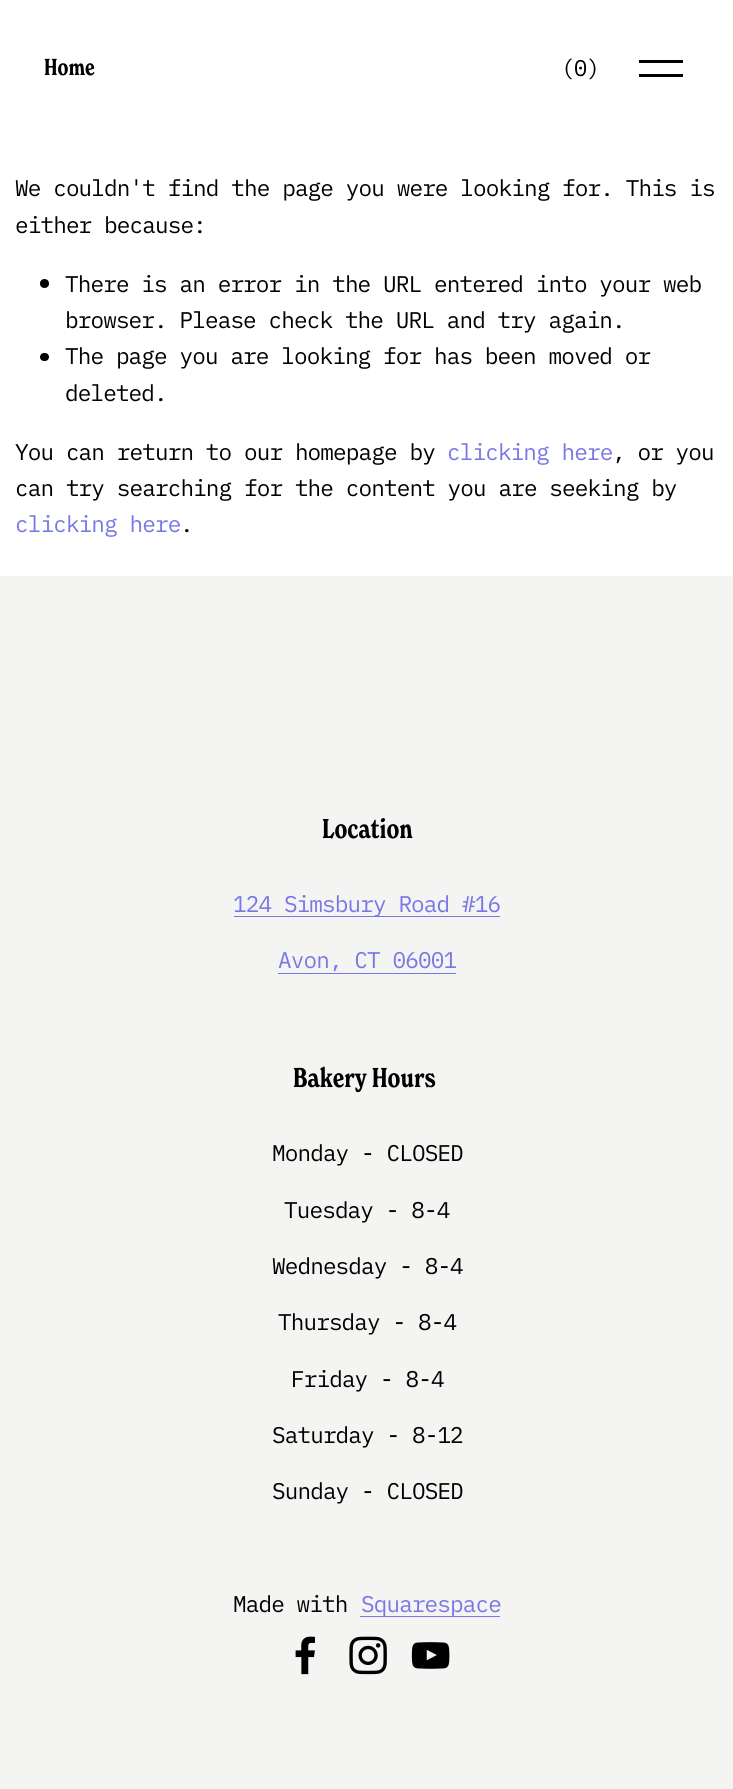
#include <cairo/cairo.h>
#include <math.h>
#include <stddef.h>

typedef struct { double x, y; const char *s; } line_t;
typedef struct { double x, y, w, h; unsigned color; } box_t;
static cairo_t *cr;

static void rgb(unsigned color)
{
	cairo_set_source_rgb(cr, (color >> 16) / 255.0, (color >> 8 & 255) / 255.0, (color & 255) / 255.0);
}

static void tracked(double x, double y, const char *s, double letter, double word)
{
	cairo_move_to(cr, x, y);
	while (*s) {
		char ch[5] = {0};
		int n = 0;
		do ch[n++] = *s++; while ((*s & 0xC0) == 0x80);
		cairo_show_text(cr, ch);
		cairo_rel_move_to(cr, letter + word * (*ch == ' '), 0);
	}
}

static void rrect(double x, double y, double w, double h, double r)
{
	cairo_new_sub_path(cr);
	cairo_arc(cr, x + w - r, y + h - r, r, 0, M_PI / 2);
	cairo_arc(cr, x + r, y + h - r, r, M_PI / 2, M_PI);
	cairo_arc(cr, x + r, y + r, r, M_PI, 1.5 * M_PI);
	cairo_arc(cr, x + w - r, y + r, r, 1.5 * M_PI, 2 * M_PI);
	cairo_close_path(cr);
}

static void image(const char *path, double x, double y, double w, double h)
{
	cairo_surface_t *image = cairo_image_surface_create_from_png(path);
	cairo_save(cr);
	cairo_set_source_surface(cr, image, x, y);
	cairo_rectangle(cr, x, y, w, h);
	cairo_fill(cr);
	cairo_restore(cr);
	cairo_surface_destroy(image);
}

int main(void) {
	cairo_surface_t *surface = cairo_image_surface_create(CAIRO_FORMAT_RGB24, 733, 1789);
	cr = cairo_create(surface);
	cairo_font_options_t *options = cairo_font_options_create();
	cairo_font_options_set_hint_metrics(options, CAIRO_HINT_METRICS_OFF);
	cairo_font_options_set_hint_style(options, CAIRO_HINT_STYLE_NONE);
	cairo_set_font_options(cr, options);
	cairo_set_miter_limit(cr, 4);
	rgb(0xffffff);
	cairo_paint(cr);
	rgb(0x000000);
	cairo_rectangle(cr, 639, 60, 44, 3);
	cairo_fill(cr);
	cairo_rectangle(cr, 639, 74, 44, 3);
	cairo_fill(cr);
	cairo_arc(cr, 44.5, 283.5, 4.5, 0, 2 * M_PI);
	cairo_fill(cr);
	rrect(40, 353, 9, 8, 4);
	cairo_fill(cr);
	{
		static const box_t items[] = {
			{0, 576, 733, 1213, 0xf4f4f3},
			{234, 916, 266, 1, 0x7877e6},
			{278, 973, 178, 1, 0x7877e6},
			{360, 1616, 140, 1, 0x7877e6},
		};
		for (size_t i = 0; i < sizeof items / sizeof *items; i++) {
			rgb(items[i].color);
			cairo_rectangle(cr, items[i].x, items[i].y, items[i].w, items[i].h);
			cairo_fill(cr);
		}
	}
	image("img/1.png", 295, 1636, 20, 39);
	image("img/2.png", 349, 1636, 38, 39);
	image("img/3.png", 411, 1642, 39, 27);
	cairo_select_font_face(cr, "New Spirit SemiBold", CAIRO_FONT_SLANT_NORMAL, CAIRO_FONT_WEIGHT_NORMAL);
	cairo_set_font_size(cr, 22.7);
	rgb(0x000000);
	cairo_move_to(cr, 44, 75);
	cairo_show_text(cr, "Home");
	cairo_select_font_face(cr, "IBM Plex Mono", CAIRO_FONT_SLANT_NORMAL, CAIRO_FONT_WEIGHT_NORMAL);
	{
		static const line_t items[] = {
			{561, 76, "(0)"},
			{15, 196, "We couldn't find the page you were looking for. This is"},
			{15, 233, "either because:"},
			{65, 292, "There is an error in the URL entered into your web"},
			{65, 328, "browser. Please check the URL and try again."},
			{65, 364, "The page you are looking for has been moved or"},
			{65, 401, "deleted."},
			{15, 460, "You can return to our homepage by"},
		};
		for (size_t i = 0; i < sizeof items / sizeof *items; i++) {
			tracked(items[i].x, items[i].y, items[i].s, -0.9, 0);
		}
	}
	rgb(0x7877e6);
	tracked(447, 460, "clicking here", -0.9, 0);
	rgb(0x000000);
	tracked(612, 460, ", or you", -0.9, 0);
	tracked(15, 496, "can try searching for the content you are seeking by", -0.9, 0);
	rgb(0x7877e6);
	tracked(15, 532, "clicking here", -0.9, 0);
	rgb(0x000000);
	tracked(180, 532, ".", -0.9, 0);
	cairo_select_font_face(cr, "New Spirit SemiBold", CAIRO_FONT_SLANT_NORMAL, CAIRO_FONT_WEIGHT_NORMAL);
	cairo_set_font_size(cr, 26.75);
	cairo_move_to(cr, 322, 838);
	cairo_show_text(cr, "Location");
	cairo_select_font_face(cr, "IBM Plex Mono", CAIRO_FONT_SLANT_NORMAL, CAIRO_FONT_WEIGHT_NORMAL);
	cairo_set_font_size(cr, 22.7);
	rgb(0x7877e6);
	tracked(233, 912, "124 Simsbury Road #16", -0.9, 0);
	tracked(278, 968, "Avon, CT 06001", -0.9, 0);
	cairo_select_font_face(cr, "New Spirit SemiBold", CAIRO_FONT_SLANT_NORMAL, CAIRO_FONT_WEIGHT_NORMAL);
	cairo_set_font_size(cr, 26.75);
	rgb(0x000000);
	cairo_move_to(cr, 293, 1087);
	cairo_show_text(cr, "Bakery Hours");
	cairo_select_font_face(cr, "IBM Plex Mono", CAIRO_FONT_SLANT_NORMAL, CAIRO_FONT_WEIGHT_NORMAL);
	cairo_set_font_size(cr, 22.7);
	{
		static const line_t items[] = {
			{272, 1161, "Monday - CLOSED"},
			{284, 1218, "Tuesday - 8-4"},
			{272, 1274, "Wednesday - 8-4"},
			{278, 1330, "Thursday - 8-4"},
			{291, 1387, "Friday - 8-4"},
			{272, 1443, "Saturday - 8-12"},
			{272, 1499, "Sunday - CLOSED"},
			{233, 1612, "Made with"},
		};
		for (size_t i = 0; i < sizeof items / sizeof *items; i++) {
			tracked(items[i].x, items[i].y, items[i].s, -0.9, 0);
		}
	}
	rgb(0x7877e6);
	tracked(361, 1612, "Squarespace", -0.9, 0);
	cairo_surface_write_to_png(surface, "page.png");
	cairo_font_options_destroy(options);
	cairo_destroy(cr);
	cairo_surface_destroy(surface);
	return 0;
}
